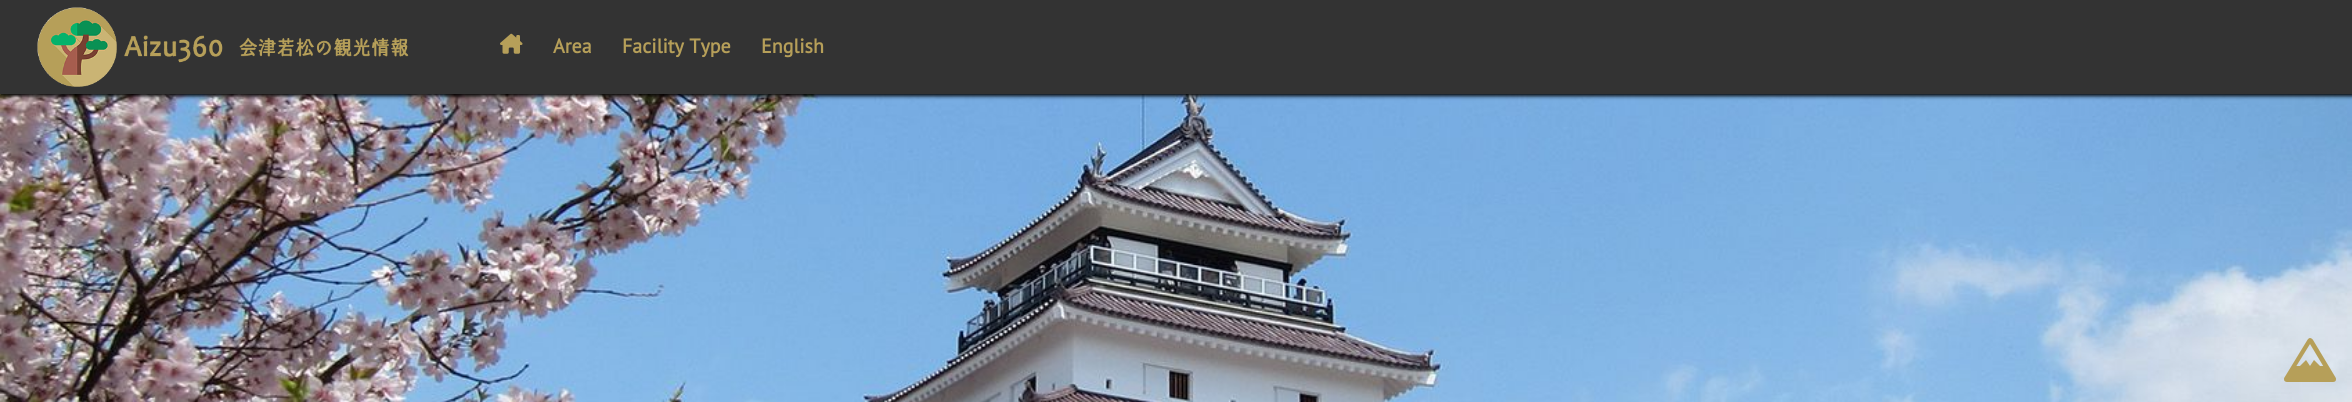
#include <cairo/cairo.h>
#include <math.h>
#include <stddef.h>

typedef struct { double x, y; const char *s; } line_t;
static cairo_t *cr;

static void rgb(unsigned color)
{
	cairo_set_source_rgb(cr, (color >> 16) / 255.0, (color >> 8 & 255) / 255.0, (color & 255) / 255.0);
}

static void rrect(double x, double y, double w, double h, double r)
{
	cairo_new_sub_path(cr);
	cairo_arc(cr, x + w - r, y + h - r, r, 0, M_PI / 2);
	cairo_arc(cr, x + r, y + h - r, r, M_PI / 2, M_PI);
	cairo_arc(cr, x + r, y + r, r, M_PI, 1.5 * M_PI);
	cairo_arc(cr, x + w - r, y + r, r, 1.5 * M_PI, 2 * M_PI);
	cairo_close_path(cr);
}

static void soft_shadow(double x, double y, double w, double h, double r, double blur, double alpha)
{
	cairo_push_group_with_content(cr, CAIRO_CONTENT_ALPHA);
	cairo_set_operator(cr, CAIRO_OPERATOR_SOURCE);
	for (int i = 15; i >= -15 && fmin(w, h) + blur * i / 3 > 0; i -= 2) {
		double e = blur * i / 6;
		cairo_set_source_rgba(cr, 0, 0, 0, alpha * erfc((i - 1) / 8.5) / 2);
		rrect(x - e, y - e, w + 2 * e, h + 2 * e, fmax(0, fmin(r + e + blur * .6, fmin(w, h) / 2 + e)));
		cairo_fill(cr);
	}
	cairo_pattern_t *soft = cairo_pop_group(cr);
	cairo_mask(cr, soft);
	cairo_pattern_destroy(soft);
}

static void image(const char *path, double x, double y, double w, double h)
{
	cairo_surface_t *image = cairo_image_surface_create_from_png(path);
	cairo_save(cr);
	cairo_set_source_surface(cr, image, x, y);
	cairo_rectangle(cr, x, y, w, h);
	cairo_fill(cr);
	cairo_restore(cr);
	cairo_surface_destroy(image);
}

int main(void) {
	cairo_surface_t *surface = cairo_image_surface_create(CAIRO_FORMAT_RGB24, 2352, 402);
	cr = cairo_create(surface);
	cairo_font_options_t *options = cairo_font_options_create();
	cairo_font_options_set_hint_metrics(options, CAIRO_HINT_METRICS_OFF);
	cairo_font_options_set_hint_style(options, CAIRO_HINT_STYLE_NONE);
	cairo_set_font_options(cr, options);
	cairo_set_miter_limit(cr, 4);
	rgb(0xffffff);
	cairo_paint(cr);
	image("img/3.png", 0, 94, 2352, 308);
	rgb(0x000000);
	soft_shadow(0, 3, 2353, 93, 0, 2, 1);
	rgb(0x333333);
	cairo_rectangle(cr, 0, 0, 2352, 94);
	cairo_fill(cr);
	image("img/1.png", 37, 7, 372, 80);
	image("img/2.png", 500, 33, 23, 21);
	image("img/4.png", 2284, 338, 52, 44);
	cairo_select_font_face(cr, "PT Sans", CAIRO_FONT_SLANT_NORMAL, CAIRO_FONT_WEIGHT_BOLD);
	cairo_set_font_size(cr, 20);
	rgb(0xb69f59);
	{
		static const line_t items[] = {
			{553, 53, "Area"},
			{622, 53, "Facility Type"},
			{761, 53, "English"},
		};
		for (size_t i = 0; i < sizeof items / sizeof *items; i++) {
			cairo_move_to(cr, items[i].x, items[i].y);
			cairo_show_text(cr, items[i].s);
		}
	}
	cairo_surface_write_to_png(surface, "page.png");
	cairo_font_options_destroy(options);
	cairo_destroy(cr);
	cairo_surface_destroy(surface);
	return 0;
}
